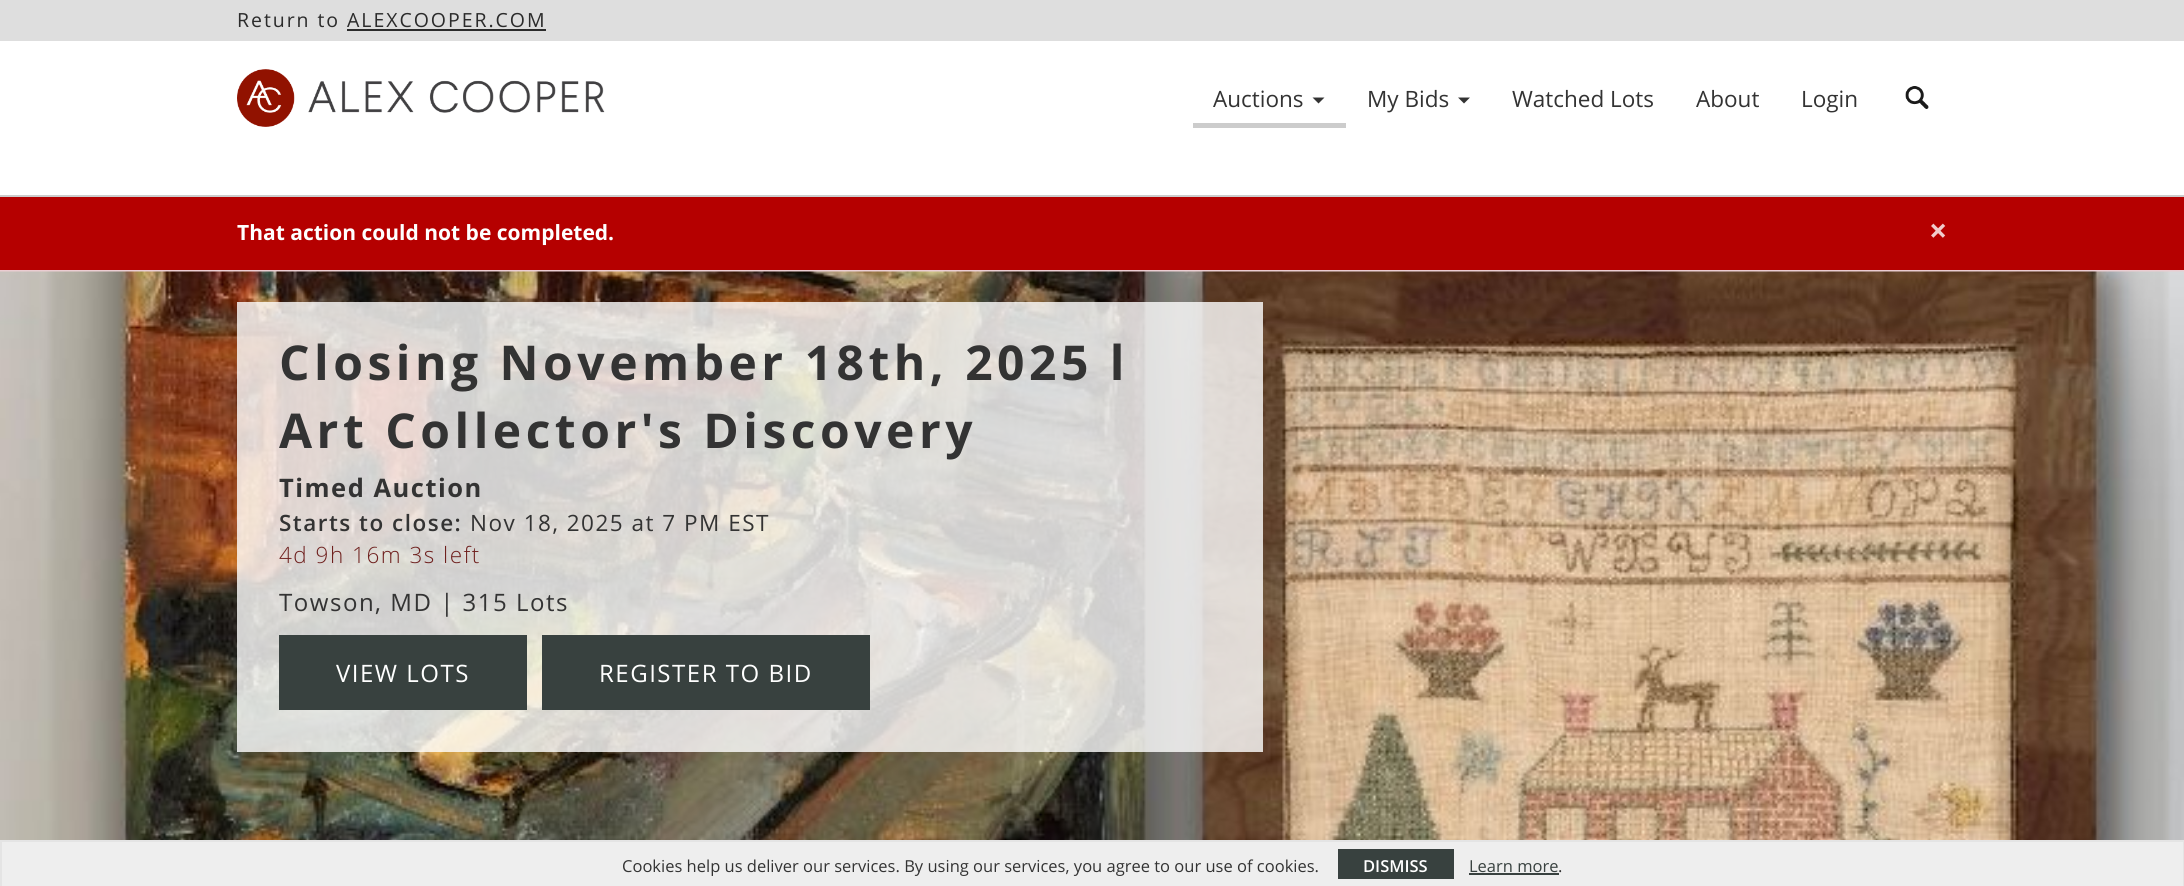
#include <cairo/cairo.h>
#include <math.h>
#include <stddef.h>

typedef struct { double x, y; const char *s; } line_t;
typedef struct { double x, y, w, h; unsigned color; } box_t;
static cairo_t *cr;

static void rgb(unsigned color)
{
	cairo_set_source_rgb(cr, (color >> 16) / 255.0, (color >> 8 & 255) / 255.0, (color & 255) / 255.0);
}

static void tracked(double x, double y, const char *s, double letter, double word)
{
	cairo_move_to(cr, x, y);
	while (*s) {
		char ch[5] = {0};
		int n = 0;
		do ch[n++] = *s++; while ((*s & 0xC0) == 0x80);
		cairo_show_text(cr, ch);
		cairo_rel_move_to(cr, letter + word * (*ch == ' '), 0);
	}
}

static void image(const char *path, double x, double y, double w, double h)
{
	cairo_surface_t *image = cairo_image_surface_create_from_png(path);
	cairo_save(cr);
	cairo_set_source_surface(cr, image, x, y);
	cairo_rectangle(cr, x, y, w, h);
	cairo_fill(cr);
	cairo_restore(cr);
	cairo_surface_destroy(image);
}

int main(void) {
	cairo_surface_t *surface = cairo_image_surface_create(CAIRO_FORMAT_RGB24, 2184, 886);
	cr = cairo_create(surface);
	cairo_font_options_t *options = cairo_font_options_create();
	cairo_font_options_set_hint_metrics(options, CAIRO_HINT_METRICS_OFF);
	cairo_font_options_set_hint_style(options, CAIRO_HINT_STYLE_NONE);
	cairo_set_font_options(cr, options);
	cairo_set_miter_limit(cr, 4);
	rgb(0xb50000);
	cairo_paint(cr);
	{
		static const box_t items[] = {
			{0, 0, 2184, 41, 0xdedede},
			{347, 29, 199, 2, 0x2b2b2b},
			{0, 41, 2184, 154, 0xffffff},
			{0, 195, 2184, 2, 0xcccccc},
		};
		for (size_t i = 0; i < sizeof items / sizeof *items; i++) {
			rgb(items[i].color);
			cairo_rectangle(cr, items[i].x, items[i].y, items[i].w, items[i].h);
			cairo_fill(cr);
		}
	}
	image("img/1.png", 237, 69, 368, 58);
	cairo_rectangle(cr, 1193, 123, 153, 5);
	cairo_fill(cr);
	rgb(0x333333);
	cairo_new_path(cr);
	cairo_move_to(cr, 1312.5, 97.5);
	cairo_line_to(cr, 1324.5, 97.5);
	cairo_line_to(cr, 1318.5, 103.5);
	cairo_close_path(cr);
	cairo_fill(cr);
	cairo_new_path(cr);
	cairo_move_to(cr, 1458, 97.5);
	cairo_line_to(cr, 1470, 97.5);
	cairo_line_to(cr, 1464, 103.5);
	cairo_close_path(cr);
	cairo_fill(cr);
	image("img/2.png", 1905, 86, 24, 23);
	rgb(0xebccd1);
	cairo_rectangle(cr, 0, 270, 2184, 2);
	cairo_fill(cr);
	image("img/3.png", 0, 271, 2184, 569);
	cairo_set_source_rgba(cr, 1, 1, 1, 0.8);
	cairo_rectangle(cr, 237, 302, 1026, 450);
	cairo_fill(cr);
	rgb(0x38413f);
	cairo_rectangle(cr, 279, 635, 248, 75);
	cairo_fill(cr);
	cairo_rectangle(cr, 542, 635, 328, 75);
	cairo_fill(cr);
	rgb(0xeeeeee);
	cairo_rectangle(cr, 2, 842, 2181, 44);
	cairo_fill(cr);
	rgb(0xe4e4e4);
	cairo_rectangle(cr, 0, 840, 2184, 2);
	cairo_fill(cr);
	cairo_rectangle(cr, 2183, 840, 1, 46);
	cairo_fill(cr);
	cairo_rectangle(cr, 0, 840, 2, 46);
	cairo_fill(cr);
	rgb(0x38413f);
	cairo_rectangle(cr, 1338, 849, 116, 30);
	cairo_fill(cr);
	cairo_rectangle(cr, 1469, 873, 90, 2);
	cairo_fill(cr);
	cairo_select_font_face(cr, "Open Sans", CAIRO_FONT_SLANT_NORMAL, CAIRO_FONT_WEIGHT_NORMAL);
	cairo_set_font_size(cr, 19.5);
	rgb(0x2b2b2b);
	tracked(237, 27, "Return to ALEXCOOPER.COM", 1.95, 0);
	cairo_set_font_size(cr, 22.5);
	rgb(0x333333);
	{
		static const line_t items[] = {
			{1213, 107, "Auctions"},
			{1367, 107, "My Bids"},
			{1512, 107, "Watched Lots"},
			{1696, 107, "About"},
			{1801, 107, "Login"},
		};
		for (size_t i = 0; i < sizeof items / sizeof *items; i++) {
			cairo_move_to(cr, items[i].x, items[i].y);
			cairo_show_text(cr, items[i].s);
		}
	}
	cairo_select_font_face(cr, "Open Sans", CAIRO_FONT_SLANT_NORMAL, CAIRO_FONT_WEIGHT_BOLD);
	cairo_set_font_size(cr, 21);
	rgb(0xffffff);
	cairo_move_to(cr, 237, 240);
	cairo_show_text(cr, "That action could not be completed.");
	cairo_set_font_size(cr, 32);
	rgb(0xf0cccc);
	cairo_move_to(cr, 1929, 242);
	cairo_show_text(cr, "×");
	cairo_set_font_size(cr, 48);
	rgb(0x333333);
	tracked(279, 380, "Closing November 18th, 2025 l", 4.5, 0);
	tracked(279, 448, "Art Collector's Discovery", 4.5, 0);
	cairo_set_font_size(cr, 25.5);
	tracked(279, 497, "Timed Auction", 1.5, 0);
	cairo_select_font_face(cr, "Open Sans SemiBold", CAIRO_FONT_SLANT_NORMAL, CAIRO_FONT_WEIGHT_NORMAL);
	cairo_set_font_size(cr, 22.5);
	tracked(279, 531, "Starts to close:", 1.5, 0);
	cairo_select_font_face(cr, "Open Sans", CAIRO_FONT_SLANT_NORMAL, CAIRO_FONT_WEIGHT_NORMAL);
	tracked(470, 531, "Nov 18, 2025 at 7 PM EST", 1.5, 0);
	cairo_select_font_face(cr, "Open Sans Light", CAIRO_FONT_SLANT_NORMAL, CAIRO_FONT_WEIGHT_NORMAL);
	rgb(0x6f201e);
	tracked(279, 563, "4d 9h 16m 3s left", 1.5, 0);
	cairo_select_font_face(cr, "Open Sans", CAIRO_FONT_SLANT_NORMAL, CAIRO_FONT_WEIGHT_NORMAL);
	cairo_set_font_size(cr, 24);
	rgb(0x333333);
	tracked(279, 611, "Towson, MD | 315 Lots", 1.5, 0);
	rgb(0xffffff);
	tracked(336, 682, "VIEW LOTS", 1.5, 0);
	tracked(599, 682, "REGISTER TO BID", 1.5, 0);
	cairo_set_font_size(cr, 16.5);
	rgb(0x333333);
	cairo_move_to(cr, 622, 872);
	cairo_show_text(cr, "Cookies help us deliver our services. By using our services, you agree to our use of cookies.");
	cairo_select_font_face(cr, "Open Sans SemiBold", CAIRO_FONT_SLANT_NORMAL, CAIRO_FONT_WEIGHT_NORMAL);
	rgb(0xffffff);
	cairo_move_to(cr, 1363, 872);
	cairo_show_text(cr, "DISMISS");
	cairo_select_font_face(cr, "Open Sans", CAIRO_FONT_SLANT_NORMAL, CAIRO_FONT_WEIGHT_NORMAL);
	rgb(0x38413f);
	cairo_move_to(cr, 1469, 872);
	cairo_show_text(cr, "Learn more");
	rgb(0x333333);
	cairo_move_to(cr, 1558, 872);
	cairo_show_text(cr, ".");
	cairo_surface_write_to_png(surface, "page.png");
	cairo_font_options_destroy(options);
	cairo_destroy(cr);
	cairo_surface_destroy(surface);
	return 0;
}
